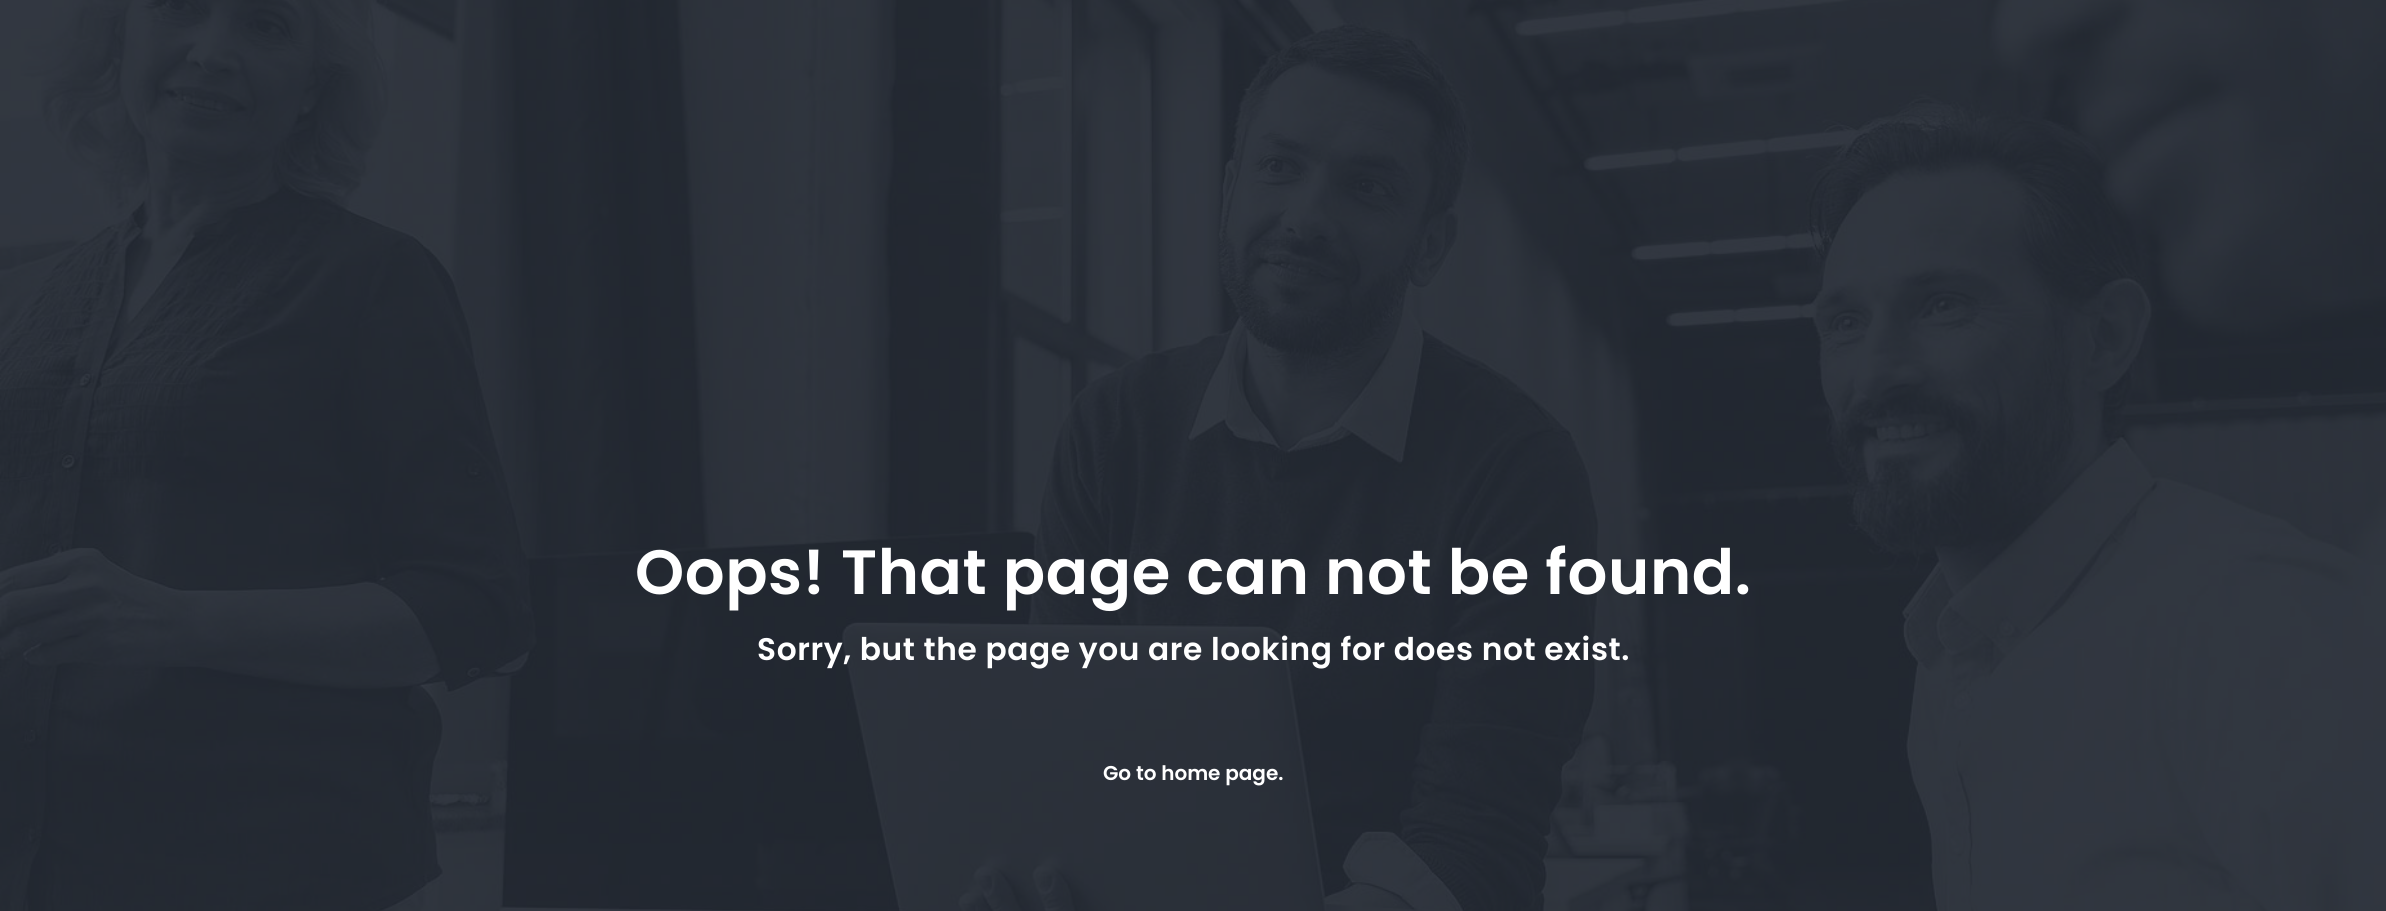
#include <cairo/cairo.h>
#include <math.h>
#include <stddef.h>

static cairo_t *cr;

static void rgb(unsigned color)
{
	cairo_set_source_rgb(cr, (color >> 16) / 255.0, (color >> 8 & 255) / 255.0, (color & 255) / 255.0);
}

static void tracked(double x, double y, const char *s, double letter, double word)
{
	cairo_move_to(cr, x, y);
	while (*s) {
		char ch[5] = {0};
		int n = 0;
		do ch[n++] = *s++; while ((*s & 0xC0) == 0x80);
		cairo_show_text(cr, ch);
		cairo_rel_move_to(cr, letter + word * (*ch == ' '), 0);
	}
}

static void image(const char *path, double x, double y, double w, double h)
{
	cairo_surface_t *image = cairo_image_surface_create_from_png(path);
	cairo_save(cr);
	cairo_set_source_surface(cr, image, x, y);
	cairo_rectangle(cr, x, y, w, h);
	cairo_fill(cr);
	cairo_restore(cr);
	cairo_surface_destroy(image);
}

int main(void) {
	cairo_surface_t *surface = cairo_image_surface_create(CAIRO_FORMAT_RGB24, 2386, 911);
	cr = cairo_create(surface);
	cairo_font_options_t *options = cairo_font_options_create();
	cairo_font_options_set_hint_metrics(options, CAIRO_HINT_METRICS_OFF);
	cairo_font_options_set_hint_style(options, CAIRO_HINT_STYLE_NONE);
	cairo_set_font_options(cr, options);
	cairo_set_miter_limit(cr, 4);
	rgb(0xffffff);
	cairo_paint(cr);
	image("img/1.png", 0, 0, 2386, 911);
	cairo_select_font_face(cr, "Poppins SemiBold", CAIRO_FONT_SLANT_NORMAL, CAIRO_FONT_WEIGHT_NORMAL);
	cairo_set_font_size(cr, 62.5);
	rgb(0xffffff);
	tracked(635, 594, "Oops! That page can not be found.", 0.6, 0);
	cairo_set_font_size(cr, 31.25);
	tracked(757, 660, "Sorry, but the page you are looking for does not exist.", 0.6, 0);
	cairo_set_font_size(cr, 20);
	cairo_move_to(cr, 1103, 780);
	cairo_show_text(cr, "Go to home page.");
	cairo_surface_write_to_png(surface, "page.png");
	cairo_font_options_destroy(options);
	cairo_destroy(cr);
	cairo_surface_destroy(surface);
	return 0;
}
